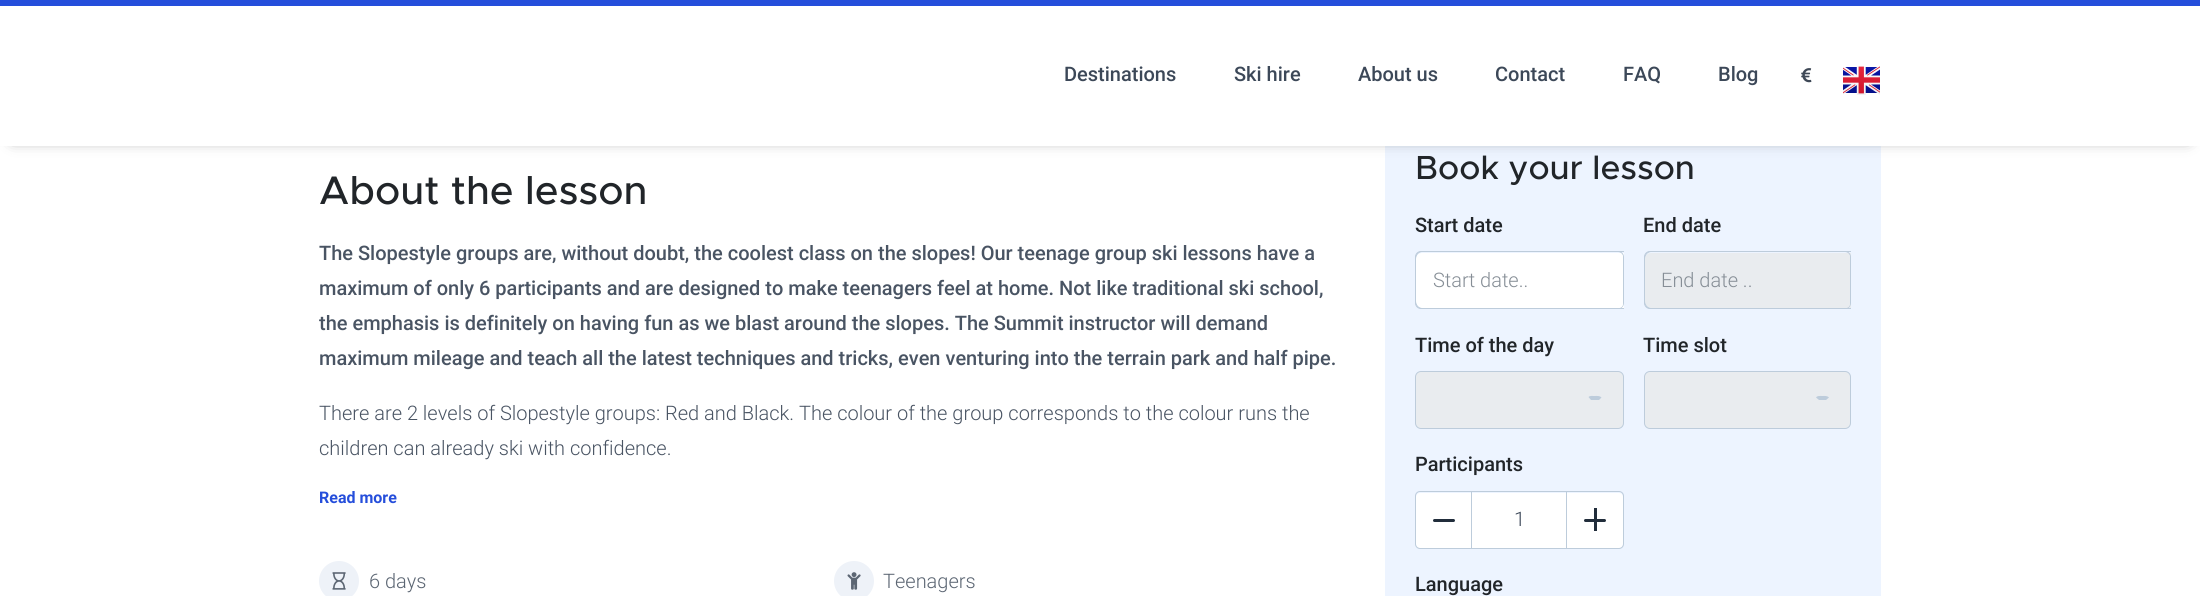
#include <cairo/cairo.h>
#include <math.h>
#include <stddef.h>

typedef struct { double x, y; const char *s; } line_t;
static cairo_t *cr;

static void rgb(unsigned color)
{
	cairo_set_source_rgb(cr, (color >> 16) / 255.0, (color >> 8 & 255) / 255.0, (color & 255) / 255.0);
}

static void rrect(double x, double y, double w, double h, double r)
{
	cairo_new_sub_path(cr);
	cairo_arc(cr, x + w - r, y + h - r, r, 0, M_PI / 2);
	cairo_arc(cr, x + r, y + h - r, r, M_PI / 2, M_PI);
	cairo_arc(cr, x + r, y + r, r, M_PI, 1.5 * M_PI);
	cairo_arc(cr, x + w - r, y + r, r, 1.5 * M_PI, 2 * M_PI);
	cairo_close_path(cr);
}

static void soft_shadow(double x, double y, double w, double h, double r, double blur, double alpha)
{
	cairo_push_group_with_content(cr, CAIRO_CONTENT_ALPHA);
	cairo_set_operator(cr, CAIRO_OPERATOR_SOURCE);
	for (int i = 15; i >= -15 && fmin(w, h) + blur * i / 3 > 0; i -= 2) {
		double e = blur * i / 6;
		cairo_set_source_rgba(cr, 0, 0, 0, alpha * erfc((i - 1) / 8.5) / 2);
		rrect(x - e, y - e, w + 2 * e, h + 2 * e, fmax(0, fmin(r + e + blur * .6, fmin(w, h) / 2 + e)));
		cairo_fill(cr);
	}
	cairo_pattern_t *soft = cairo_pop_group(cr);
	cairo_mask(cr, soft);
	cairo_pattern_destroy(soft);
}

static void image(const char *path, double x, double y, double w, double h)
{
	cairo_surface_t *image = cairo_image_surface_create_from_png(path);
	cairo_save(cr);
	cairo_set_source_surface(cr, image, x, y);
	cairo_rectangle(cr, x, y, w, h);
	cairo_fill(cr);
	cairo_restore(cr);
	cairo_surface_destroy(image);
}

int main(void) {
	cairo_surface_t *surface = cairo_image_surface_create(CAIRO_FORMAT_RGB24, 2200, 596);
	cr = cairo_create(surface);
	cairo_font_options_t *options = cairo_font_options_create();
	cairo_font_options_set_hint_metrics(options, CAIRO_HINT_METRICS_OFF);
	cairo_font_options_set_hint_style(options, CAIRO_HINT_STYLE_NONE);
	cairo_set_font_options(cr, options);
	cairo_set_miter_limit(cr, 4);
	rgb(0xffffff);
	cairo_paint(cr);
	rgb(0xedf4ff);
	cairo_rectangle(cr, 1385, 146, 496, 450);
	cairo_fill(cr);
	rgb(0x000000);
	soft_shadow(13, 18, 2175, 121, 0, 7.5, 0.5);
	rgb(0xffffff);
	cairo_rectangle(cr, 0, 6, 2200, 140);
	cairo_fill(cr);
	rgb(0x254edb);
	cairo_rectangle(cr, 0, 0, 2200, 6);
	cairo_fill(cr);
	image("img/1.png", 1801, 68, 11, 15);
	image("img/2.png", 1843, 66, 37, 29);
	rgb(0xeef2f8);
	cairo_arc(cr, 339, 581, 20, 0, 2 * M_PI);
	cairo_fill(cr);
	image("img/3.png", 332, 572, 14, 18);
	cairo_arc(cr, 854, 581, 20, 0, 2 * M_PI);
	cairo_fill(cr);
	image("img/4.png", 847, 572, 14, 18);
	rgb(0xffffff);
	cairo_new_path(cr);
	cairo_move_to(cr, 1422, 253);
	cairo_line_to(cr, 1624, 253);
	cairo_line_to(cr, 1624, 308);
	cairo_line_to(cr, 1422, 308);
	cairo_curve_to(cr, 1418.5, 308, 1416, 305.5, 1416, 302);
	cairo_line_to(cr, 1416, 259);
	cairo_curve_to(cr, 1416, 255.5, 1418.5, 253, 1422, 253);
	cairo_close_path(cr);
	cairo_fill(cr);
	rgb(0xbdccdb);
	cairo_set_fill_rule(cr, CAIRO_FILL_RULE_EVEN_ODD);
	cairo_new_path(cr);
	cairo_move_to(cr, 1422, 251);
	cairo_line_to(cr, 1624, 251);
	cairo_line_to(cr, 1624, 309);
	cairo_line_to(cr, 1422, 309);
	cairo_curve_to(cr, 1418, 309, 1415, 305, 1415, 301);
	cairo_line_to(cr, 1415, 259);
	cairo_curve_to(cr, 1415, 255, 1418, 251, 1422, 251);
	cairo_close_path(cr);
	cairo_move_to(cr, 1422, 252);
	cairo_line_to(cr, 1624, 252);
	cairo_line_to(cr, 1624, 308);
	cairo_line_to(cr, 1422, 308);
	cairo_curve_to(cr, 1419, 308, 1416, 305, 1416, 301);
	cairo_line_to(cr, 1416, 259);
	cairo_curve_to(cr, 1416, 255, 1419, 252, 1422, 252);
	cairo_close_path(cr);
	cairo_fill(cr);
	rrect(1415.5, 251.5, 208, 57, 5.5);
	cairo_set_line_width(cr, 1);
	cairo_stroke(cr);
	rgb(0xffffff);
	rrect(1575, 253, 48, 55, 4);
	cairo_fill(cr);
	rgb(0xe9ecef);
	cairo_new_path(cr);
	cairo_move_to(cr, 1651, 253);
	cairo_line_to(cr, 1851, 253);
	cairo_line_to(cr, 1851, 308);
	cairo_line_to(cr, 1651, 308);
	cairo_curve_to(cr, 1647.5, 308, 1645, 305.5, 1645, 302);
	cairo_line_to(cr, 1645, 259);
	cairo_curve_to(cr, 1645, 255.5, 1647.5, 253, 1651, 253);
	cairo_close_path(cr);
	cairo_fill(cr);
	rgb(0xbdccdb);
	cairo_new_path(cr);
	cairo_move_to(cr, 1651, 251);
	cairo_line_to(cr, 1851, 251);
	cairo_line_to(cr, 1851, 309);
	cairo_line_to(cr, 1651, 309);
	cairo_curve_to(cr, 1647, 309, 1644, 305, 1644, 301);
	cairo_line_to(cr, 1644, 259);
	cairo_curve_to(cr, 1644, 255, 1647, 251, 1651, 251);
	cairo_close_path(cr);
	cairo_move_to(cr, 1651, 252);
	cairo_line_to(cr, 1851, 252);
	cairo_line_to(cr, 1851, 308);
	cairo_line_to(cr, 1651, 308);
	cairo_curve_to(cr, 1648, 308, 1645, 305, 1645, 301);
	cairo_line_to(cr, 1645, 259);
	cairo_curve_to(cr, 1645, 255, 1648, 252, 1651, 252);
	cairo_close_path(cr);
	cairo_fill(cr);
	rrect(1644.5, 251.5, 206, 57, 5.5);
	cairo_stroke(cr);
	rgb(0xe9ecef);
	rrect(1803, 253, 47, 55, 4);
	cairo_fill(cr);
	rrect(1415.5, 371.5, 208, 57, 5.5);
	cairo_fill_preserve(cr);
	rgb(0xbdccdb);
	cairo_stroke(cr);
	cairo_set_fill_rule(cr, CAIRO_FILL_RULE_WINDING);
	cairo_new_path(cr);
	cairo_move_to(cr, 1588.5, 397);
	cairo_curve_to(cr, 1590, 395.5, 1592.5, 396, 1594.5, 396);
	cairo_curve_to(cr, 1597, 396, 1599.5, 395.5, 1601.5, 397.5);
	cairo_line_to(cr, 1599, 400);
	cairo_line_to(cr, 1591, 400);
	cairo_close_path(cr);
	cairo_fill(cr);
	rgb(0xe9ecef);
	rrect(1644.5, 371.5, 206, 57, 5.5);
	cairo_fill_preserve(cr);
	rgb(0xbdccdb);
	cairo_stroke(cr);
	cairo_new_path(cr);
	cairo_move_to(cr, 1816, 397.5);
	cairo_curve_to(cr, 1817.5, 395.5, 1820, 396, 1822.5, 396);
	cairo_curve_to(cr, 1824.5, 396, 1827, 395.5, 1829, 397.5);
	cairo_line_to(cr, 1826, 400);
	cairo_line_to(cr, 1819, 400);
	cairo_close_path(cr);
	cairo_fill(cr);
	rgb(0xffffff);
	rrect(1416, 493, 207, 55, 4);
	cairo_fill(cr);
	rrect(1415.5, 491.5, 208, 57, 4.5);
	rgb(0xbdccdb);
	cairo_stroke(cr);
	cairo_rectangle(cr, 1471, 491, 1, 58);
	cairo_fill(cr);
	rgb(0x212d3b);
	rrect(1433, 519, 22, 3, 1.5);
	cairo_fill(cr);
	rgb(0xbdccdb);
	cairo_rectangle(cr, 1566, 491, 1, 58);
	cairo_fill(cr);
	rgb(0x212d3b);
	rrect(1584, 519, 22, 3, 1.5);
	cairo_fill(cr);
	cairo_rectangle(cr, 1594, 508, 3, 23);
	cairo_fill(cr);
	cairo_select_font_face(cr, "Roboto Medium", CAIRO_FONT_SLANT_NORMAL, CAIRO_FONT_WEIGHT_NORMAL);
	cairo_set_font_size(cr, 20);
	rgb(0x3c4858);
	{
		static const line_t items[] = {
			{1064, 81, "Destinations"},
			{1234, 81, "Ski hire"},
			{1358, 81, "About us"},
			{1495, 81, "Contact"},
			{1623, 81, "FAQ"},
			{1718, 81, "Blog"},
		};
		for (size_t i = 0; i < sizeof items / sizeof *items; i++) {
			cairo_move_to(cr, items[i].x, items[i].y);
			cairo_show_text(cr, items[i].s);
		}
	}
	cairo_select_font_face(cr, "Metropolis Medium", CAIRO_FONT_SLANT_NORMAL, CAIRO_FONT_WEIGHT_NORMAL);
	cairo_set_font_size(cr, 40);
	rgb(0x212529);
	cairo_move_to(cr, 319, 204);
	cairo_show_text(cr, "About the lesson");
	cairo_select_font_face(cr, "Roboto Medium", CAIRO_FONT_SLANT_NORMAL, CAIRO_FONT_WEIGHT_NORMAL);
	cairo_set_font_size(cr, 20);
	rgb(0x495463);
	{
		static const line_t items[] = {
			{319, 260, "The Slopestyle groups are, without doubt, the coolest class on the slopes! Our teenage group ski lessons have a"},
			{319, 295, "maximum of only 6 participants and are designed to make teenagers feel at home. Not like traditional ski school,"},
			{319, 330, "the emphasis is definitely on having fun as we blast around the slopes. The Summit instructor will demand"},
			{319, 365, "maximum mileage and teach all the latest techniques and tricks, even venturing into the terrain park and half pipe."},
		};
		for (size_t i = 0; i < sizeof items / sizeof *items; i++) {
			cairo_move_to(cr, items[i].x, items[i].y);
			cairo_show_text(cr, items[i].s);
		}
	}
	cairo_select_font_face(cr, "Roboto Light", CAIRO_FONT_SLANT_NORMAL, CAIRO_FONT_WEIGHT_NORMAL);
	cairo_move_to(cr, 319, 420);
	cairo_show_text(cr, "There are 2 levels of Slopestyle groups: Red and Black. The colour of the group corresponds to the colour runs the");
	cairo_move_to(cr, 319, 455);
	cairo_show_text(cr, "children can already ski with confidence.");
	cairo_select_font_face(cr, "Roboto", CAIRO_FONT_SLANT_NORMAL, CAIRO_FONT_WEIGHT_BOLD);
	cairo_set_font_size(cr, 16);
	rgb(0x254edb);
	cairo_move_to(cr, 319, 503);
	cairo_show_text(cr, "Read more");
	cairo_select_font_face(cr, "Roboto Light", CAIRO_FONT_SLANT_NORMAL, CAIRO_FONT_WEIGHT_NORMAL);
	cairo_set_font_size(cr, 20);
	rgb(0x5c6673);
	cairo_move_to(cr, 369, 588);
	cairo_show_text(cr, "6 days");
	cairo_move_to(cr, 883, 588);
	cairo_show_text(cr, "Teenagers");
	cairo_select_font_face(cr, "Metropolis Medium", CAIRO_FONT_SLANT_NORMAL, CAIRO_FONT_WEIGHT_NORMAL);
	cairo_set_font_size(cr, 33.5);
	rgb(0x212529);
	cairo_move_to(cr, 1415, 179);
	cairo_show_text(cr, "Book your lesson");
	cairo_select_font_face(cr, "Roboto Medium", CAIRO_FONT_SLANT_NORMAL, CAIRO_FONT_WEIGHT_NORMAL);
	cairo_set_font_size(cr, 20);
	cairo_move_to(cr, 1415, 232);
	cairo_show_text(cr, "Start date");
	cairo_select_font_face(cr, "Roboto Light", CAIRO_FONT_SLANT_NORMAL, CAIRO_FONT_WEIGHT_NORMAL);
	rgb(0x868e96);
	cairo_move_to(cr, 1433, 287);
	cairo_show_text(cr, "Start date..");
	cairo_select_font_face(cr, "Roboto Medium", CAIRO_FONT_SLANT_NORMAL, CAIRO_FONT_WEIGHT_NORMAL);
	rgb(0x212529);
	cairo_move_to(cr, 1643, 232);
	cairo_show_text(cr, "End date");
	cairo_select_font_face(cr, "Roboto Light", CAIRO_FONT_SLANT_NORMAL, CAIRO_FONT_WEIGHT_NORMAL);
	rgb(0x868e96);
	cairo_move_to(cr, 1661, 287);
	cairo_show_text(cr, "End date ..");
	cairo_select_font_face(cr, "Roboto Medium", CAIRO_FONT_SLANT_NORMAL, CAIRO_FONT_WEIGHT_NORMAL);
	rgb(0x212529);
	{
		static const line_t items[] = {
			{1415, 352, "Time of the day"},
			{1643, 352, "Time slot"},
			{1415, 471, "Participants"},
		};
		for (size_t i = 0; i < sizeof items / sizeof *items; i++) {
			cairo_move_to(cr, items[i].x, items[i].y);
			cairo_show_text(cr, items[i].s);
		}
	}
	cairo_select_font_face(cr, "Roboto Light", CAIRO_FONT_SLANT_NORMAL, CAIRO_FONT_WEIGHT_NORMAL);
	rgb(0x3c4858);
	cairo_move_to(cr, 1514, 526);
	cairo_show_text(cr, "1");
	cairo_select_font_face(cr, "Roboto Medium", CAIRO_FONT_SLANT_NORMAL, CAIRO_FONT_WEIGHT_NORMAL);
	rgb(0x212529);
	cairo_move_to(cr, 1415, 591);
	cairo_show_text(cr, "Language");
	cairo_surface_write_to_png(surface, "page.png");
	cairo_font_options_destroy(options);
	cairo_destroy(cr);
	cairo_surface_destroy(surface);
	return 0;
}
